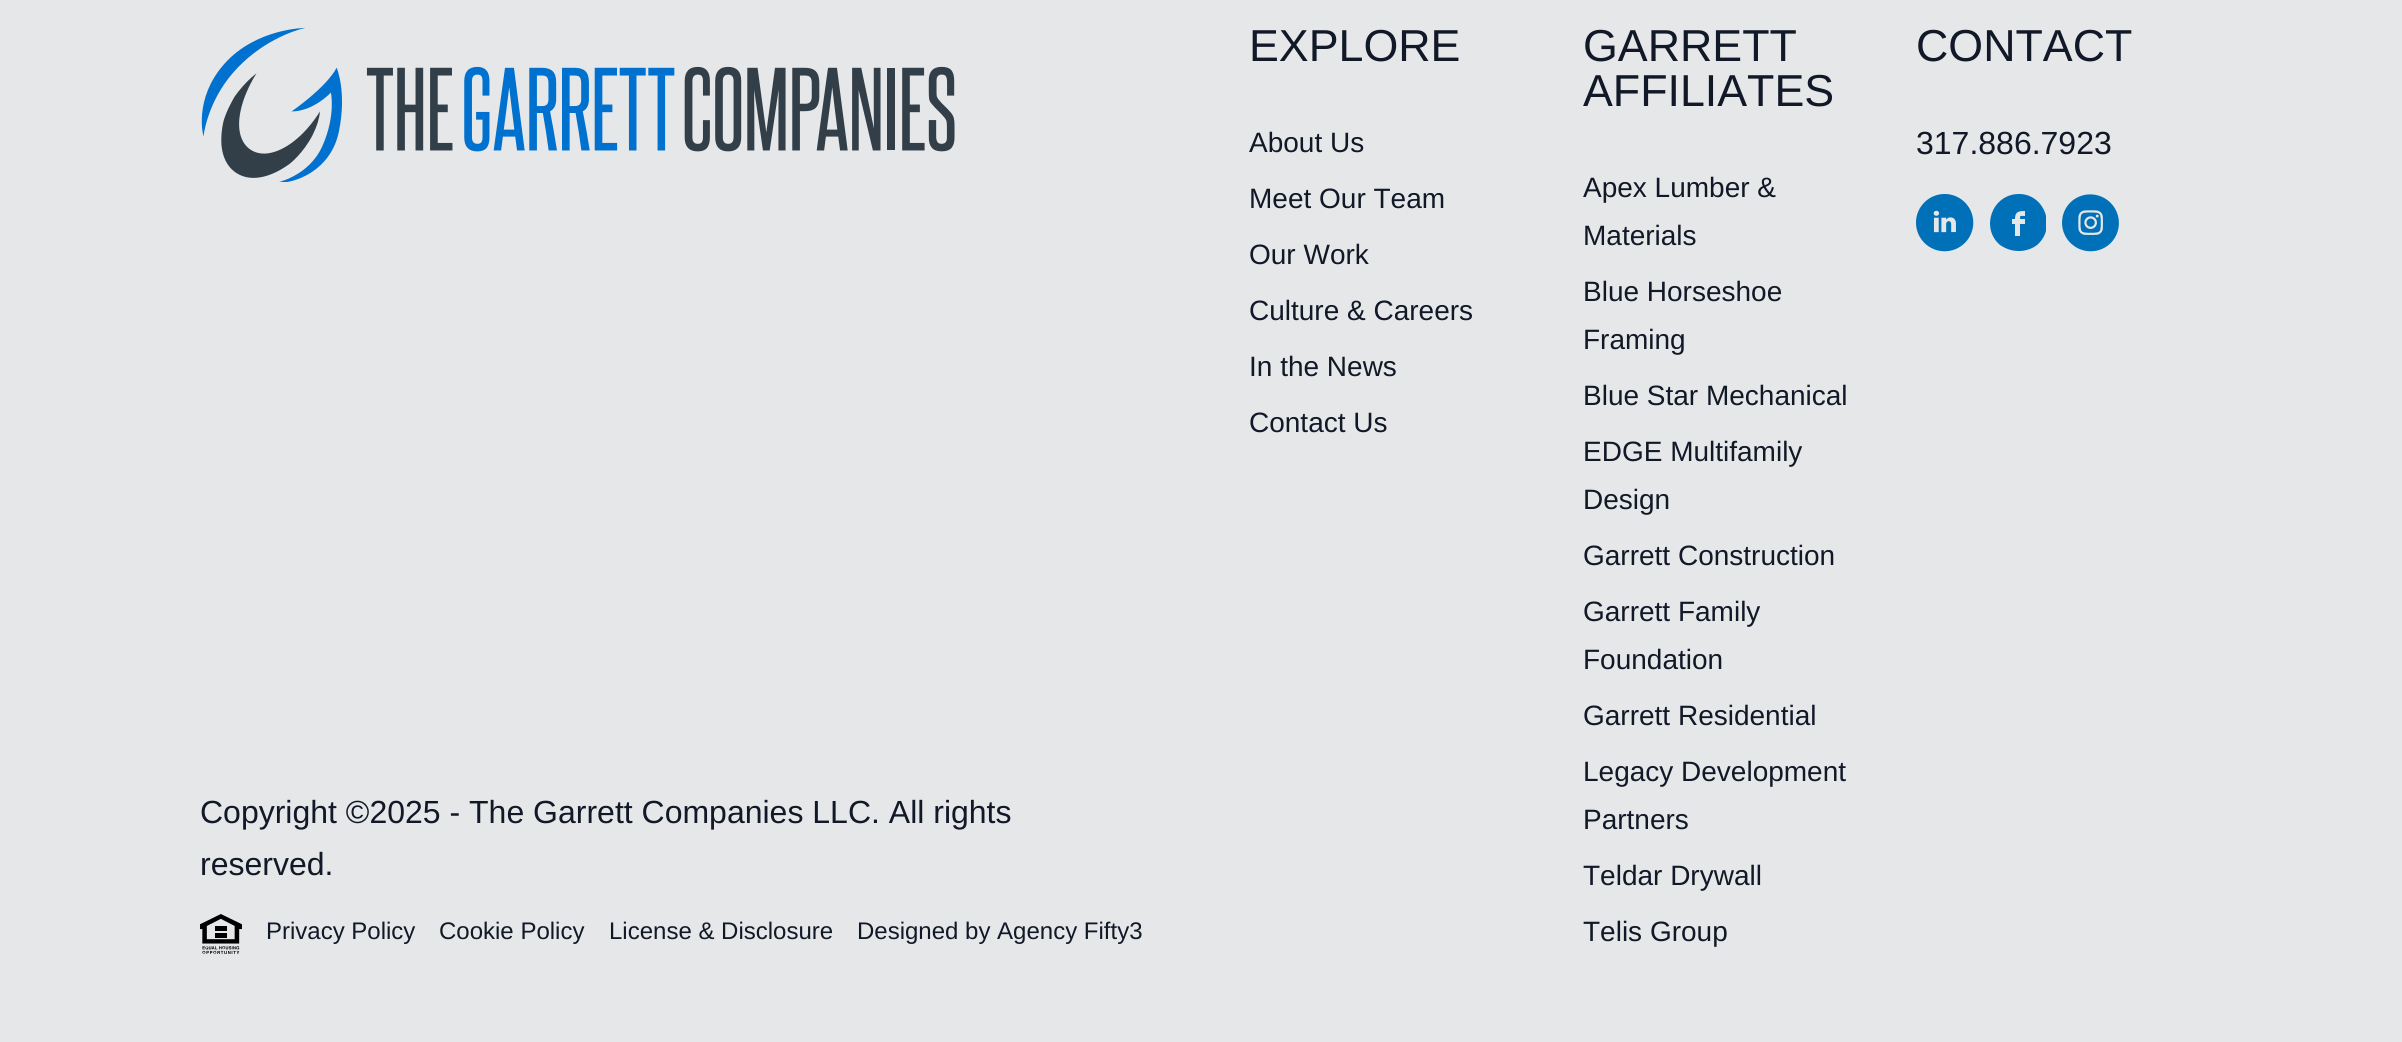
#include <cairo/cairo.h>
#include <math.h>
#include <stddef.h>

typedef struct { double x, y; const char *s; } line_t;
static cairo_t *cr;

static void rgb(unsigned color)
{
	cairo_set_source_rgb(cr, (color >> 16) / 255.0, (color >> 8 & 255) / 255.0, (color & 255) / 255.0);
}

static void image(const char *path, double x, double y, double w, double h)
{
	cairo_surface_t *image = cairo_image_surface_create_from_png(path);
	cairo_save(cr);
	cairo_set_source_surface(cr, image, x, y);
	cairo_rectangle(cr, x, y, w, h);
	cairo_fill(cr);
	cairo_restore(cr);
	cairo_surface_destroy(image);
}

int main(void) {
	cairo_surface_t *surface = cairo_image_surface_create(CAIRO_FORMAT_RGB24, 2402, 1042);
	cr = cairo_create(surface);
	cairo_font_options_t *options = cairo_font_options_create();
	cairo_font_options_set_hint_metrics(options, CAIRO_HINT_METRICS_OFF);
	cairo_font_options_set_hint_style(options, CAIRO_HINT_STYLE_NONE);
	cairo_set_font_options(cr, options);
	cairo_set_miter_limit(cr, 4);
	rgb(0xe6e7e8);
	cairo_paint(cr);
	image("img/1.png", 201, 27, 754, 155);
	image("img/2.png", 200, 914, 42, 40);
	image("img/3.png", 1916, 194, 58, 58);
	cairo_save(cr);
	cairo_rectangle(cr, 1990, 194, 56, 58);
	cairo_clip(cr);
	rgb(0x0070b9);
	cairo_new_path(cr);
	cairo_move_to(cr, 2019, 251);
	cairo_curve_to(cr, 2012, 251, 2006, 249, 2000, 245);
	cairo_curve_to(cr, 1980, 228, 1992, 194, 2019, 194);
	cairo_curve_to(cr, 2045, 194, 2057, 228, 2037, 245);
	cairo_curve_to(cr, 2032, 249, 2025, 251, 2019, 251);
	cairo_close_path(cr);
	cairo_move_to(cr, 2015, 224);
	cairo_line_to(cr, 2015, 236);
	cairo_line_to(cr, 2020, 236);
	cairo_line_to(cr, 2020, 224);
	cairo_line_to(cr, 2025, 224);
	cairo_line_to(cr, 2025, 219);
	cairo_line_to(cr, 2020, 219);
	cairo_curve_to(cr, 2020, 215, 2020, 216, 2025, 216);
	cairo_line_to(cr, 2025, 211);
	cairo_curve_to(cr, 2018, 211, 2015, 212, 2015, 219);
	cairo_line_to(cr, 2012, 219);
	cairo_line_to(cr, 2012, 224);
	cairo_close_path(cr);
	cairo_fill(cr);
	cairo_restore(cr);
	image("img/4.png", 2062, 194, 57, 58);
	cairo_select_font_face(cr, "Liberation Sans", CAIRO_FONT_SLANT_NORMAL, CAIRO_FONT_WEIGHT_NORMAL);
	cairo_set_font_size(cr, 32);
	rgb(0x111827);
	cairo_move_to(cr, 200, 823);
	cairo_show_text(cr, "Copyright ©2025 - The Garrett Companies LLC. All rights");
	cairo_move_to(cr, 200, 875);
	cairo_show_text(cr, "reserved.");
	cairo_set_font_size(cr, 24);
	{
		static const line_t items[] = {
			{266, 939, "Privacy Policy"},
			{439, 939, "Cookie Policy"},
			{609, 939, "License & Disclosure"},
			{857, 939, "Designed by Agency Fifty3"},
		};
		for (size_t i = 0; i < sizeof items / sizeof *items; i++) {
			cairo_move_to(cr, items[i].x, items[i].y);
			cairo_show_text(cr, items[i].s);
		}
	}
	cairo_set_font_size(cr, 44.75);
	cairo_move_to(cr, 1249, 61);
	cairo_show_text(cr, "EXPLORE");
	cairo_set_font_size(cr, 28);
	{
		static const line_t items[] = {
			{1249, 152, "About Us"},
			{1249, 208, "Meet Our Team"},
			{1249, 264, "Our Work"},
			{1249, 320, "Culture & Careers"},
			{1249, 376, "In the News"},
			{1249, 432, "Contact Us"},
		};
		for (size_t i = 0; i < sizeof items / sizeof *items; i++) {
			cairo_move_to(cr, items[i].x, items[i].y);
			cairo_show_text(cr, items[i].s);
		}
	}
	cairo_set_font_size(cr, 44.75);
	cairo_move_to(cr, 1583, 61);
	cairo_show_text(cr, "GARRETT");
	cairo_move_to(cr, 1583, 106);
	cairo_show_text(cr, "AFFILIATES");
	cairo_set_font_size(cr, 28);
	{
		static const line_t items[] = {
			{1583, 197, "Apex Lumber &"},
			{1583, 245, "Materials"},
			{1583, 301, "Blue Horseshoe"},
			{1583, 349, "Framing"},
			{1583, 405, "Blue Star Mechanical"},
			{1583, 461, "EDGE Multifamily"},
			{1583, 509, "Design"},
			{1583, 565, "Garrett Construction"},
			{1583, 621, "Garrett Family"},
			{1583, 669, "Foundation"},
			{1583, 725, "Garrett Residential"},
			{1583, 781, "Legacy Development"},
			{1583, 829, "Partners"},
			{1583, 885, "Teldar Drywall"},
			{1583, 941, "Telis Group"},
		};
		for (size_t i = 0; i < sizeof items / sizeof *items; i++) {
			cairo_move_to(cr, items[i].x, items[i].y);
			cairo_show_text(cr, items[i].s);
		}
	}
	cairo_set_font_size(cr, 44.75);
	cairo_move_to(cr, 1916, 61);
	cairo_show_text(cr, "CONTACT");
	cairo_set_font_size(cr, 32);
	cairo_move_to(cr, 1916, 154);
	cairo_show_text(cr, "317.886.7923");
	cairo_surface_write_to_png(surface, "page.png");
	cairo_font_options_destroy(options);
	cairo_destroy(cr);
	cairo_surface_destroy(surface);
	return 0;
}
